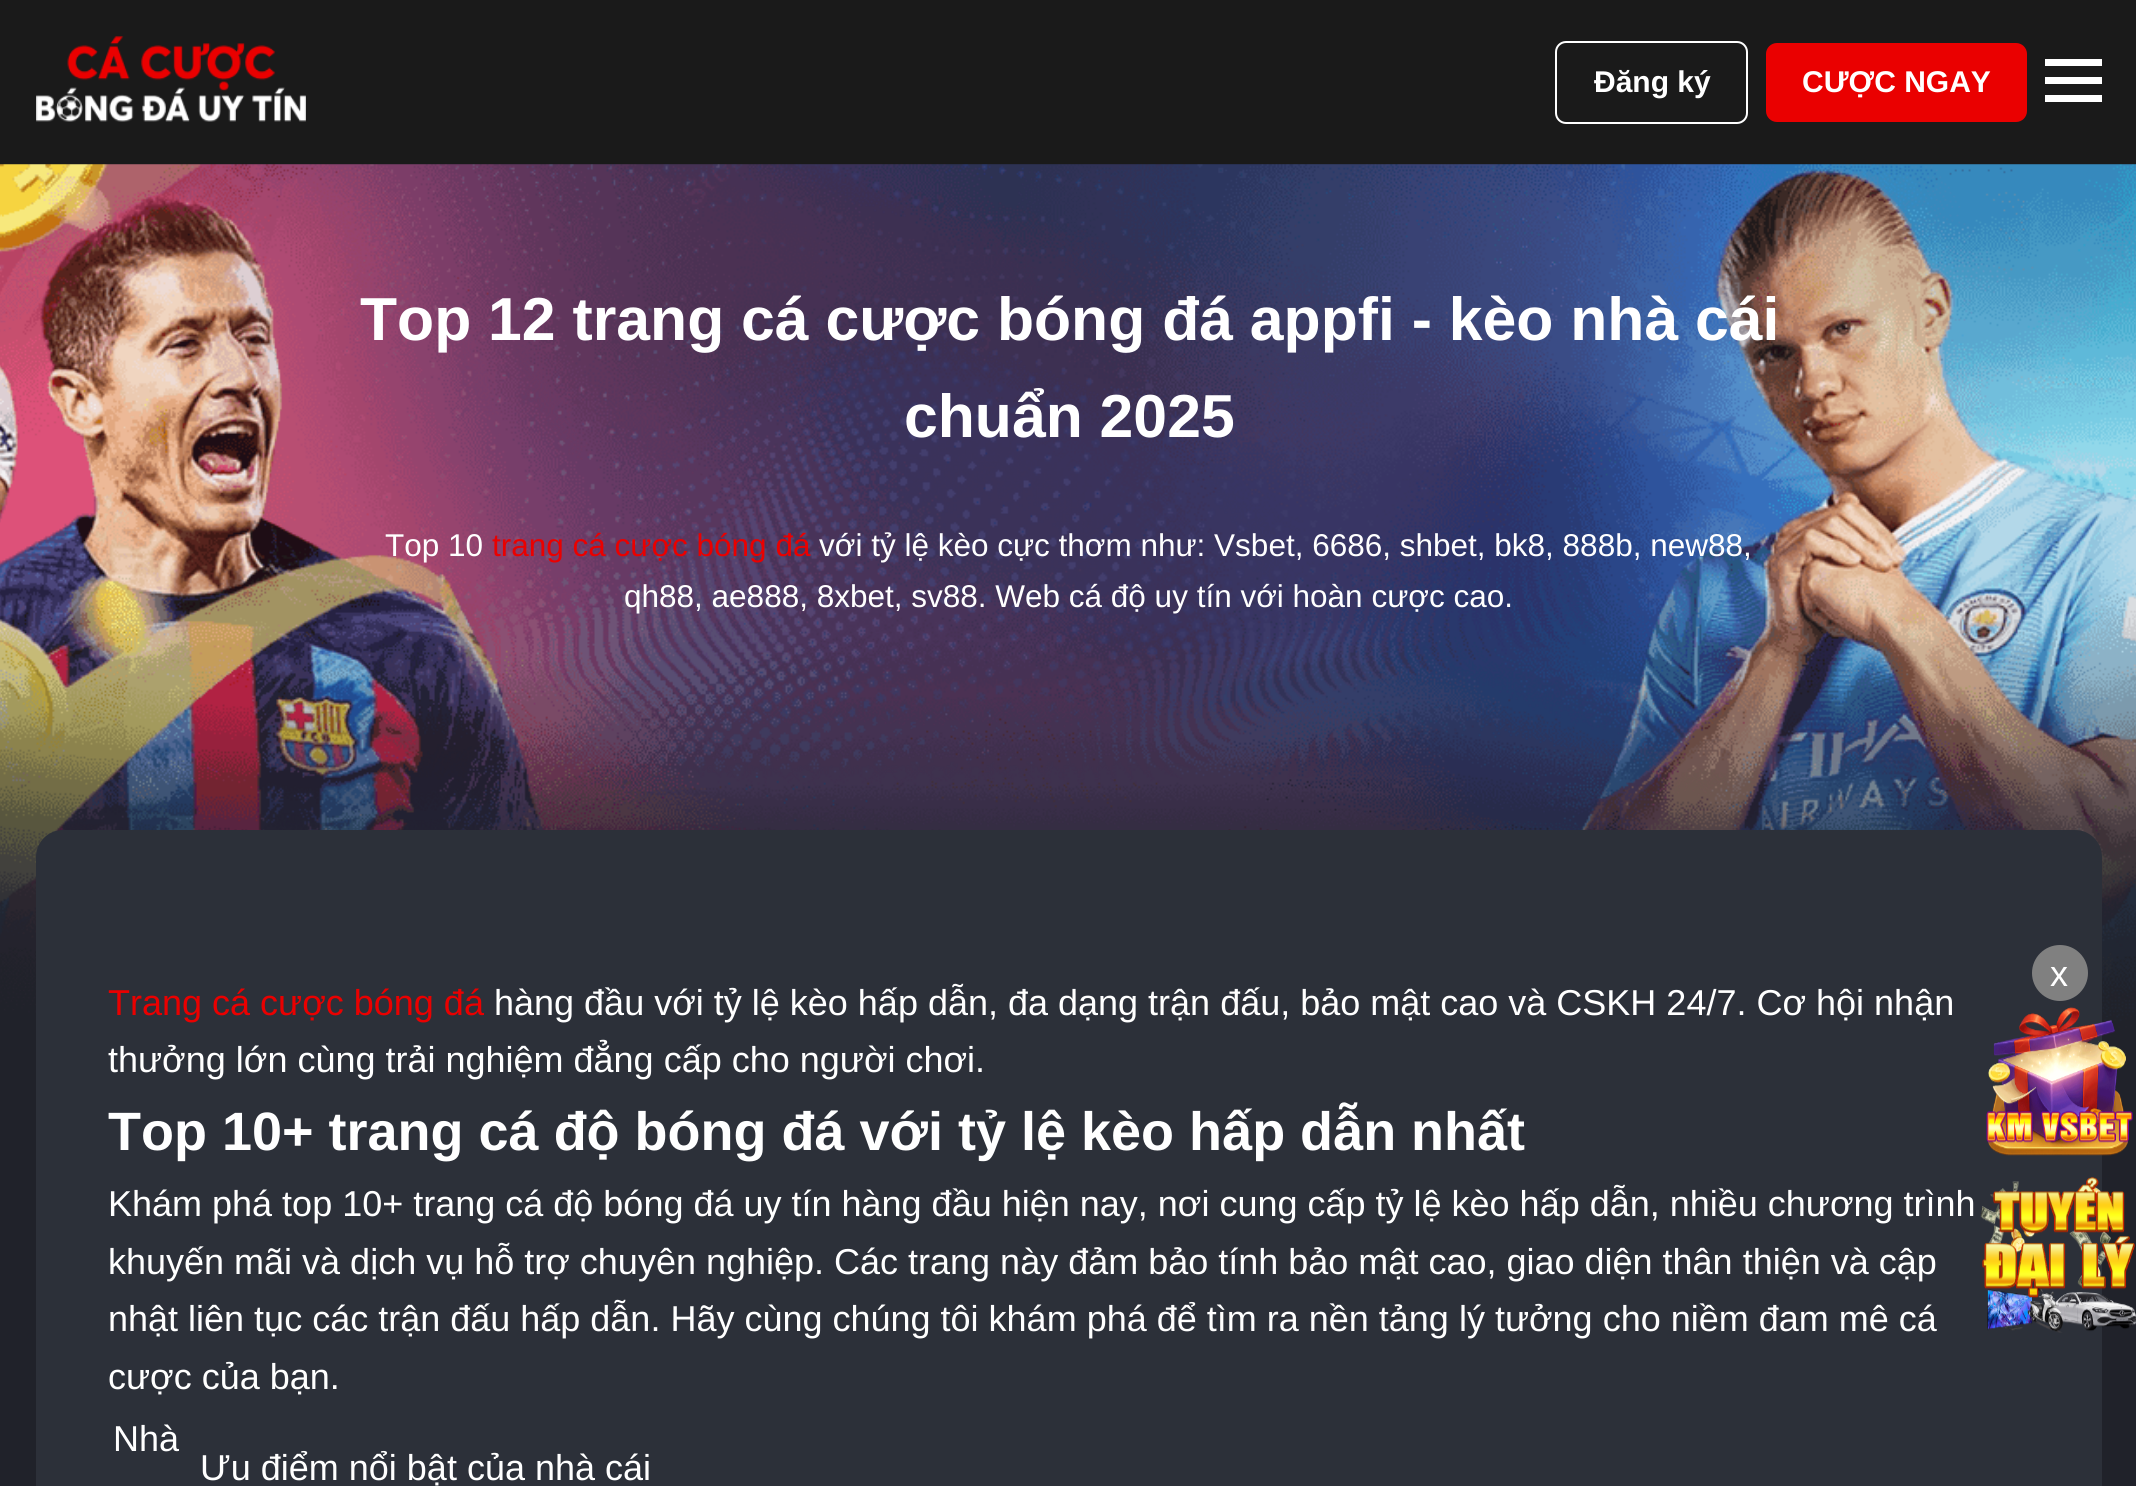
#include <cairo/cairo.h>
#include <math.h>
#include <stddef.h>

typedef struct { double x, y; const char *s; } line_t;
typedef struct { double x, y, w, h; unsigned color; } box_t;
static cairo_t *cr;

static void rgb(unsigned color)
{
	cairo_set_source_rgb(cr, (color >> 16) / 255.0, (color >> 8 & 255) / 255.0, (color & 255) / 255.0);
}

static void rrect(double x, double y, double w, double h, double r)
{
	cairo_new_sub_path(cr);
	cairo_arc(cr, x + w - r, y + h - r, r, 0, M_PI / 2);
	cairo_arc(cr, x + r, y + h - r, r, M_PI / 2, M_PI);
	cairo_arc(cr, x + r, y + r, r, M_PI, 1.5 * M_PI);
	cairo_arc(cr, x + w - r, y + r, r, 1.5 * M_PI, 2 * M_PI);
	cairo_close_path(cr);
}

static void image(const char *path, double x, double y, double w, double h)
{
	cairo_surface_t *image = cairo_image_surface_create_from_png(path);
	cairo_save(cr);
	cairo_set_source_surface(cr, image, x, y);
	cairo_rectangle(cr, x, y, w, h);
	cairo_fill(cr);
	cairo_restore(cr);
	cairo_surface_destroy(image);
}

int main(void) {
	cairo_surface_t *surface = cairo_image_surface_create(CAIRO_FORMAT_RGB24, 2136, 1486);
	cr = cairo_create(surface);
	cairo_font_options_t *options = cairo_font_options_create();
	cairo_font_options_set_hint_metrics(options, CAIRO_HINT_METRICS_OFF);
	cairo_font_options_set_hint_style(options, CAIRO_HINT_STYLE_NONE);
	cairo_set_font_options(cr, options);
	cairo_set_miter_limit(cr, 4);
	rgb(0x20222a);
	cairo_paint(cr);
	rgb(0x1a1a1a);
	cairo_rectangle(cr, 0, 0, 2136, 164);
	cairo_fill(cr);
	image("img/1.png", 36, 36, 270, 86);
	rrect(1556, 42, 191, 81, 10);
	rgb(0xffffff);
	cairo_stroke(cr);
	rgb(0xea0000);
	rrect(1766, 43, 261, 79, 11);
	cairo_fill(cr);
	{
		static const box_t items[] = {
			{2045, 59, 57, 7, 0xffffff},
			{2045, 77, 57, 7, 0xffffff},
			{2045, 95, 57, 7, 0xffffff},
		};
		for (size_t i = 0; i < sizeof items / sizeof *items; i++) {
			rgb(items[i].color);
			cairo_rectangle(cr, items[i].x, items[i].y, items[i].w, items[i].h);
			cairo_fill(cr);
		}
	}
	image("img/2.png", 0, 164, 2136, 864);
	rgb(0x2c3039);
	rrect(36, 830, 2066, 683, 27);
	cairo_fill(cr);
	rgb(0x808080);
	cairo_arc(cr, 2060, 973, 28, 0, 2 * M_PI);
	cairo_fill(cr);
	image("img/3.png", 1986, 1007, 147, 149);
	image("img/4.png", 1980, 1177, 156, 156);
	cairo_select_font_face(cr, "Liberation Sans", CAIRO_FONT_SLANT_NORMAL, CAIRO_FONT_WEIGHT_BOLD);
	cairo_set_font_size(cr, 30);
	rgb(0xffffff);
	cairo_move_to(cr, 1594, 92);
	cairo_show_text(cr, "Đăng ký");
	cairo_move_to(cr, 1802, 92);
	cairo_show_text(cr, "CƯỢC NGAY");
	cairo_set_font_size(cr, 60.7);
	cairo_move_to(cr, 360, 340);
	cairo_show_text(cr, "Top 12 trang cá cược bóng đá appfi - kèo nhà cái");
	cairo_move_to(cr, 904, 437);
	cairo_show_text(cr, "chuẩn 2025");
	cairo_select_font_face(cr, "Liberation Sans", CAIRO_FONT_SLANT_NORMAL, CAIRO_FONT_WEIGHT_NORMAL);
	cairo_set_font_size(cr, 31.5);
	cairo_move_to(cr, 385, 556);
	cairo_show_text(cr, "Top 10");
	rgb(0xea0000);
	cairo_move_to(cr, 492, 556);
	cairo_show_text(cr, "trang cá cược bóng đá");
	rgb(0xffffff);
	cairo_move_to(cr, 819, 556);
	cairo_show_text(cr, "với tỷ lệ kèo cực thơm như: Vsbet, 6686, shbet, bk8, 888b, new88,");
	cairo_move_to(cr, 624, 607);
	cairo_show_text(cr, "qh88, ae888, 8xbet, sv88. Web cá độ uy tín với hoàn cược cao.");
	cairo_set_font_size(cr, 36);
	cairo_move_to(cr, 2050, 986);
	cairo_show_text(cr, "x");
	rgb(0xea0000);
	cairo_move_to(cr, 108, 1015);
	cairo_show_text(cr, "Trang cá cược bóng đá");
	rgb(0xffffff);
	cairo_move_to(cr, 494, 1015);
	cairo_show_text(cr, "hàng đầu với tỷ lệ kèo hấp dẫn, đa dạng trận đấu, bảo mật cao và CSKH 24/7. Cơ hội nhận");
	cairo_move_to(cr, 108, 1072);
	cairo_show_text(cr, "thưởng lớn cùng trải nghiệm đẳng cấp cho người chơi.");
	cairo_select_font_face(cr, "Liberation Sans", CAIRO_FONT_SLANT_NORMAL, CAIRO_FONT_WEIGHT_BOLD);
	cairo_set_font_size(cr, 54);
	cairo_move_to(cr, 108, 1150);
	cairo_show_text(cr, "Top 10+ trang cá độ bóng đá với tỷ lệ kèo hấp dẫn nhất");
	cairo_select_font_face(cr, "Liberation Sans", CAIRO_FONT_SLANT_NORMAL, CAIRO_FONT_WEIGHT_NORMAL);
	cairo_set_font_size(cr, 36);
	{
		static const line_t items[] = {
			{108, 1216, "Khám phá top 10+ trang cá độ bóng đá uy tín hàng đầu hiện nay, nơi cung cấp tỷ lệ kèo hấp dẫn, nhiều chương trình"},
			{108, 1274, "khuyến mãi và dịch vụ hỗ trợ chuyên nghiệp. Các trang này đảm bảo tính bảo mật cao, giao diện thân thiện và cập"},
			{108, 1331, "nhật liên tục các trận đấu hấp dẫn. Hãy cùng chúng tôi khám phá để tìm ra nền tảng lý tưởng cho niềm đam mê cá"},
			{108, 1389, "cược của bạn."},
			{113, 1451, "Nhà"},
			{200, 1480, "Ưu điểm nổi bật của nhà cái"},
		};
		for (size_t i = 0; i < sizeof items / sizeof *items; i++) {
			cairo_move_to(cr, items[i].x, items[i].y);
			cairo_show_text(cr, items[i].s);
		}
	}
	cairo_surface_write_to_png(surface, "page.png");
	cairo_font_options_destroy(options);
	cairo_destroy(cr);
	cairo_surface_destroy(surface);
	return 0;
}
